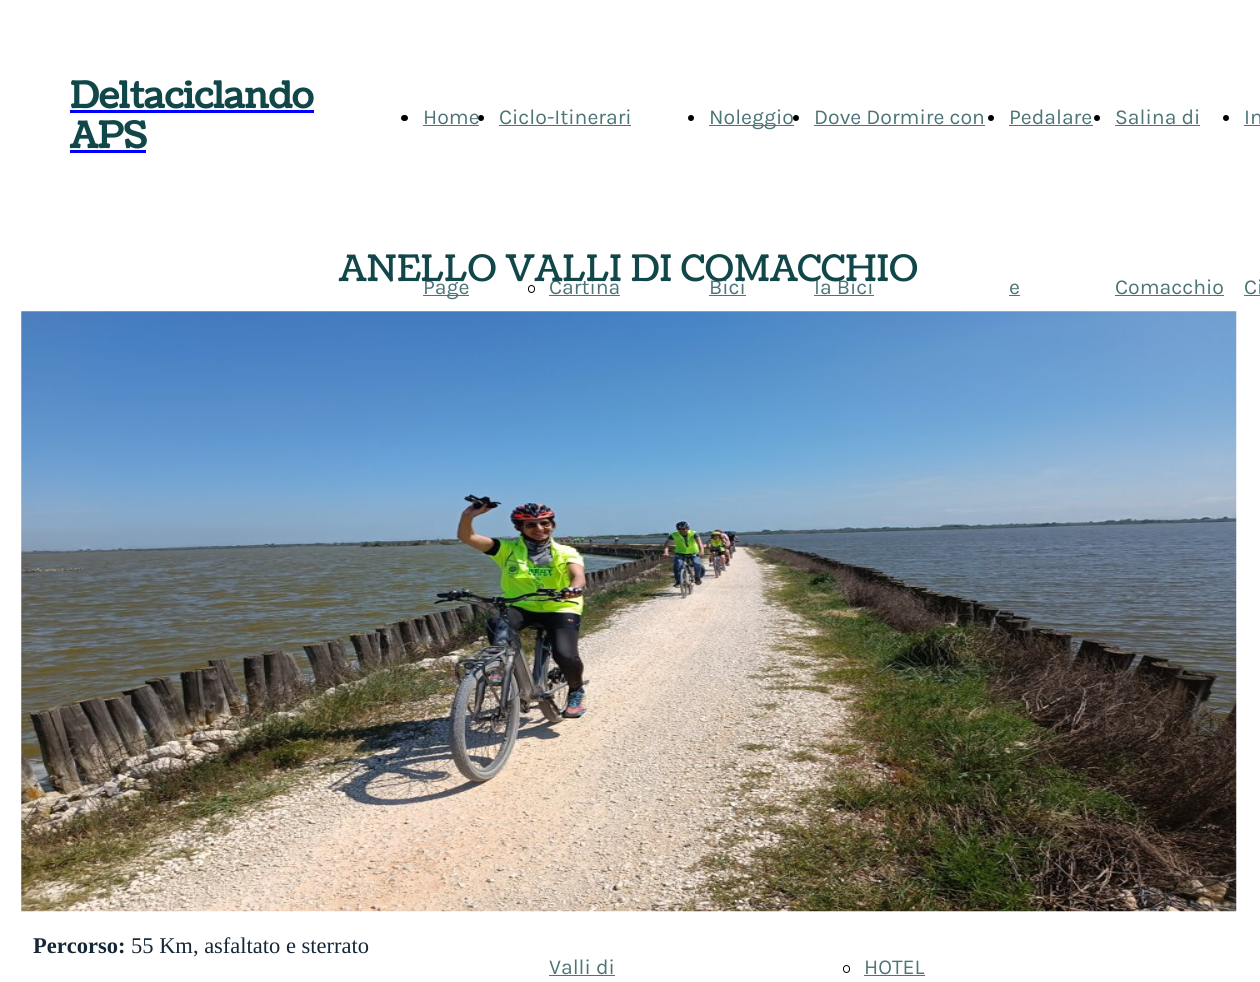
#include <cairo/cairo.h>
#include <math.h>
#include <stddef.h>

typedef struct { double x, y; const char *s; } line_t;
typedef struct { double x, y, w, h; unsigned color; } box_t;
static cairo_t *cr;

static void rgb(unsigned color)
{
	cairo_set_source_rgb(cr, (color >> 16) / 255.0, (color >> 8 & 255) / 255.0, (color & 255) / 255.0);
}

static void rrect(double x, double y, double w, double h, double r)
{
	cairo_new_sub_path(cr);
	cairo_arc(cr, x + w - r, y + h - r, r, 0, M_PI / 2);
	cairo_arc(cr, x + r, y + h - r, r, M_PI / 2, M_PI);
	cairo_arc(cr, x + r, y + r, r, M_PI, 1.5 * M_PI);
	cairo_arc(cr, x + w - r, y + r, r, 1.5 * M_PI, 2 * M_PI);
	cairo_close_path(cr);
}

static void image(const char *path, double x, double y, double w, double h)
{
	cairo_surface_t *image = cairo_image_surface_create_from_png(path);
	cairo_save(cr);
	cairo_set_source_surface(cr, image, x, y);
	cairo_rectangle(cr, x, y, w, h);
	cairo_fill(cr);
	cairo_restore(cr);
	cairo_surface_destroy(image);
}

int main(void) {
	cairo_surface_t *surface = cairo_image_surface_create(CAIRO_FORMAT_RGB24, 1260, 982);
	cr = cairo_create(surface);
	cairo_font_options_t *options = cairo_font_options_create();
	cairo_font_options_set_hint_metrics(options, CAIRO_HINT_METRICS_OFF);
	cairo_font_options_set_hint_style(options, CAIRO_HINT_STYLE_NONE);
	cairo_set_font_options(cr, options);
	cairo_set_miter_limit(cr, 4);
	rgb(0xffffff);
	cairo_paint(cr);
	rgb(0x0000ff);
	cairo_rectangle(cr, 70, 110, 244, 3);
	cairo_fill(cr);
	cairo_rectangle(cr, 70, 150, 76, 3);
	cairo_fill(cr);
	rgb(0x000000);
	rrect(401, 115, 7, 6, 3);
	cairo_fill(cr);
	rgb(0x4d7577);
	cairo_rectangle(cr, 423, 125, 56, 1);
	cairo_fill(cr);
	cairo_rectangle(cr, 423, 295, 46, 1);
	cairo_fill(cr);
	rgb(0x000000);
	cairo_arc(cr, 481, 118, 3, 0, 2 * M_PI);
	cairo_fill(cr);
	rgb(0x4d7577);
	cairo_rectangle(cr, 499, 125, 132, 1);
	cairo_fill(cr);
	rrect(528.5, 285.5, 6, 7, 3);
	rgb(0x000000);
	cairo_set_line_width(cr, 1);
	cairo_stroke(cr);
	rgb(0x4d7577);
	cairo_rectangle(cr, 549, 295, 71, 1);
	cairo_fill(cr);
	cairo_rectangle(cr, 549, 975, 66, 1);
	cairo_fill(cr);
	rgb(0x000000);
	cairo_arc(cr, 691, 118, 3, 0, 2 * M_PI);
	cairo_fill(cr);
	{
		static const box_t items[] = {
			{709, 125, 85, 1, 0x4d7577},
			{709, 295, 37, 1, 0x4d7577},
			{814, 125, 171, 1, 0x4d7577},
			{814, 295, 60, 1, 0x4d7577},
		};
		for (size_t i = 0; i < sizeof items / sizeof *items; i++) {
			rgb(items[i].color);
			cairo_rectangle(cr, items[i].x, items[i].y, items[i].w, items[i].h);
			cairo_fill(cr);
		}
	}
	rrect(843.5, 965.5, 6, 7, 3);
	rgb(0x000000);
	cairo_stroke(cr);
	rgb(0x4d7577);
	cairo_rectangle(cr, 864, 975, 61, 1);
	cairo_fill(cr);
	rgb(0x000000);
	cairo_arc(cr, 991, 118, 3, 0, 2 * M_PI);
	cairo_fill(cr);
	rgb(0x4d7577);
	cairo_rectangle(cr, 1009, 125, 84, 1);
	cairo_fill(cr);
	cairo_rectangle(cr, 1009, 295, 11, 1);
	cairo_fill(cr);
	rgb(0x000000);
	cairo_arc(cr, 1097, 118, 3, 0, 2 * M_PI);
	cairo_fill(cr);
	rgb(0x4d7577);
	cairo_rectangle(cr, 1115, 125, 85, 1);
	cairo_fill(cr);
	cairo_rectangle(cr, 1115, 295, 109, 1);
	cairo_fill(cr);
	rgb(0x000000);
	cairo_arc(cr, 1226, 118, 3, 0, 2 * M_PI);
	cairo_fill(cr);
	rgb(0x4d7577);
	cairo_rectangle(cr, 1244, 125, 16, 1);
	cairo_fill(cr);
	cairo_rectangle(cr, 1244, 295, 16, 1);
	cairo_fill(cr);
	image("img/1.png", 21, 311, 1216, 601);
	cairo_select_font_face(cr, "Coustard", CAIRO_FONT_SLANT_NORMAL, CAIRO_FONT_WEIGHT_BOLD);
	cairo_set_font_size(cr, 36.5);
	rgb(0x124749);
	cairo_move_to(cr, 70, 108);
	cairo_show_text(cr, "Deltaciclando");
	cairo_move_to(cr, 70, 148);
	cairo_show_text(cr, "APS");
	cairo_select_font_face(cr, "Karla", CAIRO_FONT_SLANT_NORMAL, CAIRO_FONT_WEIGHT_NORMAL);
	cairo_set_font_size(cr, 21.25);
	rgb(0x4d7577);
	{
		static const line_t items[] = {
			{423, 124, "Home"},
			{423, 294, "Page"},
			{499, 124, "Ciclo-Itinerari"},
			{549, 294, "Cartina"},
			{549, 974, "Valli di"},
			{709, 124, "Noleggio"},
			{709, 294, "Bici"},
		};
		for (size_t i = 0; i < sizeof items / sizeof *items; i++) {
			cairo_move_to(cr, items[i].x, items[i].y);
			cairo_show_text(cr, items[i].s);
		}
	}
	rgb(0x000000);
	cairo_new_path(cr);
	cairo_arc(cr, 796, 118, 3, 0, 2 * M_PI);
	cairo_fill(cr);
	rgb(0x4d7577);
	{
		static const line_t items[] = {
			{814, 124, "Dove Dormire con"},
			{814, 294, "la Bici"},
			{864, 974, "HOTEL"},
			{1009, 124, "Pedalare"},
			{1009, 294, "e"},
			{1115, 124, "Salina di"},
			{1115, 294, "Comacchio"},
			{1244, 124, "In"},
			{1244, 294, "Ci"},
		};
		for (size_t i = 0; i < sizeof items / sizeof *items; i++) {
			cairo_move_to(cr, items[i].x, items[i].y);
			cairo_show_text(cr, items[i].s);
		}
	}
	cairo_select_font_face(cr, "Coustard", CAIRO_FONT_SLANT_NORMAL, CAIRO_FONT_WEIGHT_NORMAL);
	cairo_set_font_size(cr, 36.5);
	rgb(0x124749);
	cairo_move_to(cr, 339, 281);
	cairo_show_text(cr, "ANELLO VALLI DI COMACCHIO");
	cairo_select_font_face(cr, "Liberation Serif", CAIRO_FONT_SLANT_NORMAL, CAIRO_FONT_WEIGHT_BOLD);
	cairo_set_font_size(cr, 22.5);
	rgb(0x152737);
	cairo_move_to(cr, 33, 953);
	cairo_show_text(cr, "Percorso:");
	cairo_select_font_face(cr, "Liberation Serif", CAIRO_FONT_SLANT_NORMAL, CAIRO_FONT_WEIGHT_NORMAL);
	cairo_move_to(cr, 131, 953);
	cairo_show_text(cr, "55 Km, asfaltato e sterrato");
	cairo_surface_write_to_png(surface, "page.png");
	cairo_font_options_destroy(options);
	cairo_destroy(cr);
	cairo_surface_destroy(surface);
	return 0;
}
